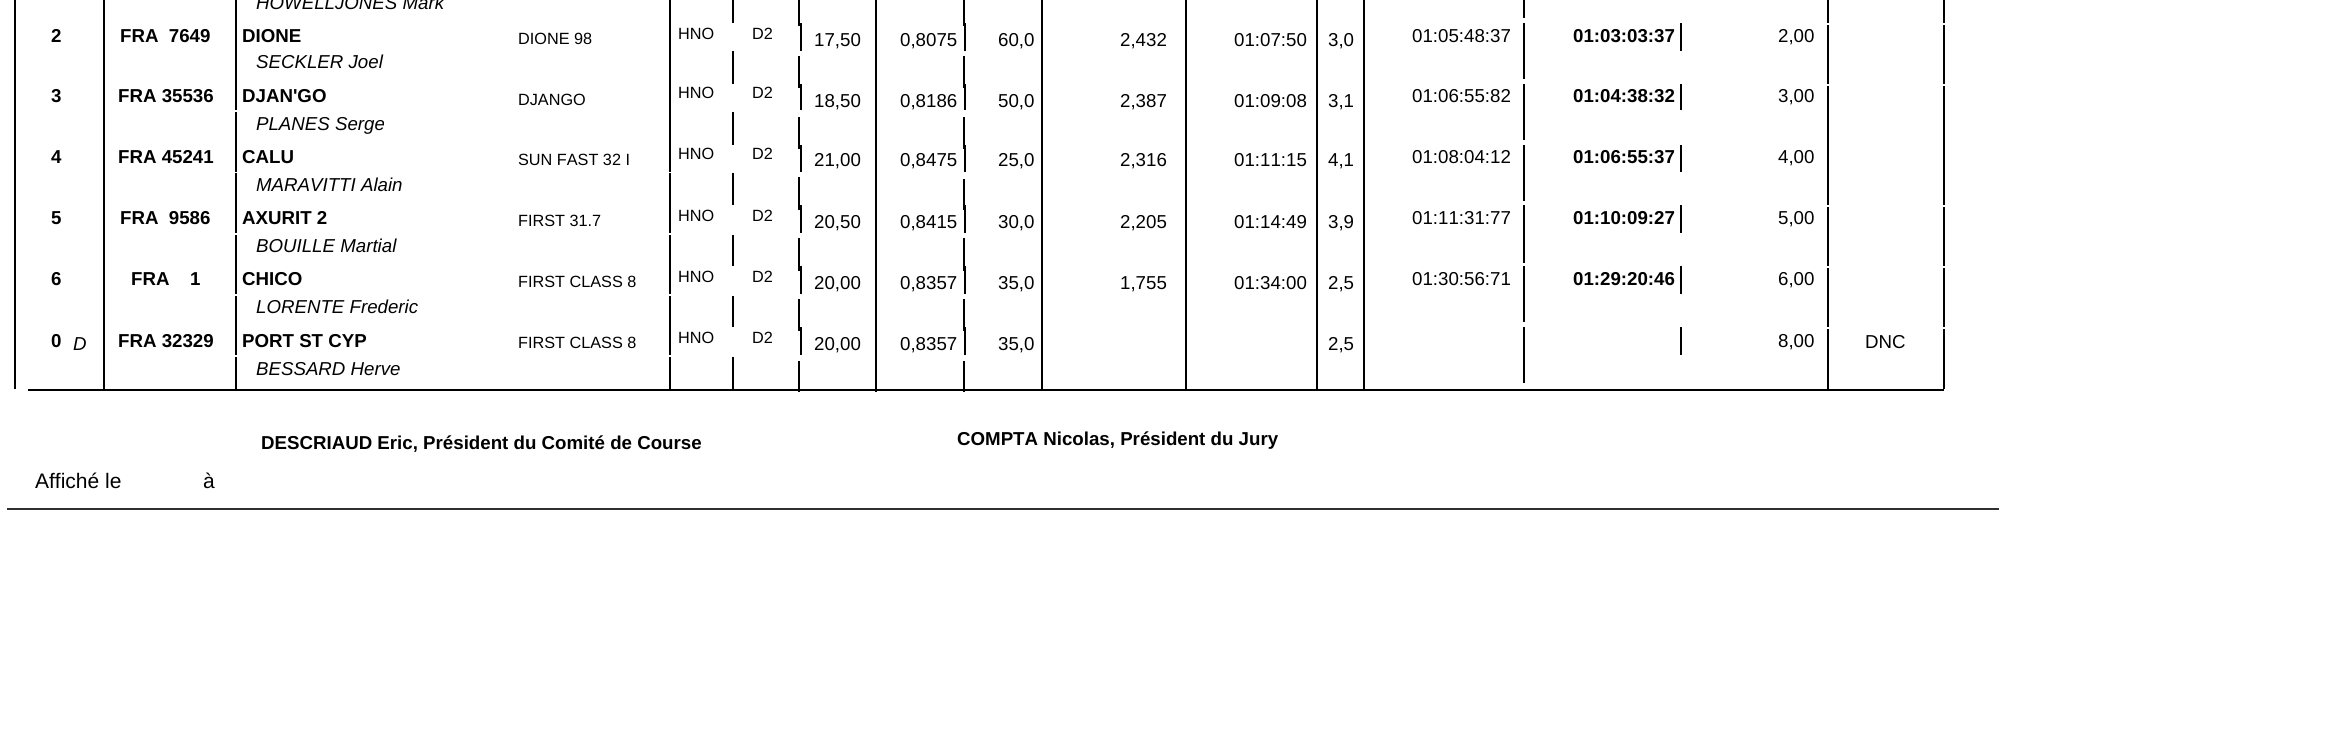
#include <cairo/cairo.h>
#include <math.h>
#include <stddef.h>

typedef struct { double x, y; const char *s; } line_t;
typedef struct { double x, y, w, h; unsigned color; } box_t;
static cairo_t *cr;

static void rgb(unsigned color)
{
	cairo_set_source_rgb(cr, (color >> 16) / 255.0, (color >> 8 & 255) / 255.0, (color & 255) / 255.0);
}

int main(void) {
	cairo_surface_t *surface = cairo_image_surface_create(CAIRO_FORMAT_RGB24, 2328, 749);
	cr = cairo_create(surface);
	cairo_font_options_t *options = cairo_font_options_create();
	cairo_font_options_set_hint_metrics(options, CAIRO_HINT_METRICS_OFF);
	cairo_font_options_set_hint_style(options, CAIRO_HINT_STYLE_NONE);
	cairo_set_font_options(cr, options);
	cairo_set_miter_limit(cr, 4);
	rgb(0xffffff);
	cairo_paint(cr);
	{
		static const box_t items[] = {
			{14, 0, 2, 389, 0x000000},
			{103, 0, 2, 389, 0x000000},
			{235, 0, 2, 110, 0x000000},
			{669, 0, 2, 172, 0x000000},
			{732, 0, 2, 23, 0x000000},
			{798, 0, 2, 26, 0x000000},
			{963, 0, 2, 26, 0x000000},
			{875, 0, 2, 392, 0x000000},
			{1041, 0, 2, 389, 0x000000},
			{1185, 0, 2, 389, 0x000000},
			{1363, 0, 2, 389, 0x000000},
			{1316, 0, 2, 389, 0x000000},
			{1523, 0, 2, 18, 0x000000},
			{1943, 0, 2, 23, 0x000000},
			{1827, 0, 2, 23, 0x000000},
			{800, 23, 2, 28, 0x000000},
			{964, 23, 2, 28, 0x000000},
			{1523, 23, 2, 56, 0x000000},
			{1680, 23, 2, 28, 0x000000},
			{1943, 25, 2, 59, 0x000000},
			{1827, 25, 2, 59, 0x000000},
			{732, 51, 2, 33, 0x000000},
			{798, 56, 2, 32, 0x000000},
			{963, 56, 2, 32, 0x000000},
			{800, 84, 2, 26, 0x000000},
			{964, 84, 2, 26, 0x000000},
			{1523, 84, 2, 56, 0x000000},
			{1680, 84, 2, 26, 0x000000},
			{1943, 86, 2, 119, 0x000000},
			{1827, 86, 2, 119, 0x000000},
			{235, 112, 2, 60, 0x000000},
			{732, 112, 2, 33, 0x000000},
			{798, 117, 2, 32, 0x000000},
			{963, 117, 2, 32, 0x000000},
			{800, 145, 2, 27, 0x000000},
			{964, 145, 2, 27, 0x000000},
			{1523, 145, 2, 56, 0x000000},
			{1680, 145, 2, 27, 0x000000},
			{235, 173, 2, 60, 0x000000},
			{669, 173, 2, 60, 0x000000},
			{732, 173, 2, 32, 0x000000},
			{798, 177, 2, 33, 0x000000},
			{963, 179, 2, 31, 0x000000},
			{800, 205, 2, 28, 0x000000},
			{964, 205, 2, 28, 0x000000},
			{1523, 205, 2, 58, 0x000000},
			{1680, 205, 2, 28, 0x000000},
			{1943, 207, 2, 59, 0x000000},
			{1827, 207, 2, 59, 0x000000},
			{235, 235, 2, 59, 0x000000},
			{669, 235, 2, 59, 0x000000},
			{732, 235, 2, 31, 0x000000},
			{798, 238, 2, 33, 0x000000},
			{963, 238, 2, 33, 0x000000},
			{800, 266, 2, 28, 0x000000},
			{964, 266, 2, 28, 0x000000},
			{1523, 266, 2, 56, 0x000000},
			{1680, 266, 2, 28, 0x000000},
			{1943, 268, 2, 59, 0x000000},
			{1827, 268, 2, 59, 0x000000},
			{235, 296, 2, 59, 0x000000},
			{669, 296, 2, 59, 0x000000},
			{732, 296, 2, 31, 0x000000},
			{798, 299, 2, 32, 0x000000},
			{963, 299, 2, 32, 0x000000},
			{800, 327, 2, 28, 0x000000},
			{964, 327, 2, 28, 0x000000},
			{1523, 327, 2, 56, 0x000000},
			{1680, 327, 2, 28, 0x000000},
			{1943, 329, 2, 60, 0x000000},
			{1827, 329, 2, 60, 0x000000},
			{235, 357, 2, 32, 0x000000},
			{669, 357, 2, 32, 0x000000},
			{732, 357, 2, 32, 0x000000},
			{798, 361, 2, 31, 0x000000},
			{963, 361, 2, 31, 0x000000},
			{28, 389, 1916, 2, 0x000000},
			{7, 508, 1992, 2, 0x303030},
		};
		for (size_t i = 0; i < sizeof items / sizeof *items; i++) {
			rgb(items[i].color);
			cairo_rectangle(cr, items[i].x, items[i].y, items[i].w, items[i].h);
			cairo_fill(cr);
		}
	}
	cairo_select_font_face(cr, "Liberation Sans", CAIRO_FONT_SLANT_ITALIC, CAIRO_FONT_WEIGHT_NORMAL);
	cairo_set_font_size(cr, 18.7);
	rgb(0x000000);
	cairo_move_to(cr, 256, 9);
	cairo_show_text(cr, "HOWELLJONES Mark");
	cairo_select_font_face(cr, "Liberation Sans", CAIRO_FONT_SLANT_NORMAL, CAIRO_FONT_WEIGHT_BOLD);
	{
		static const line_t items[] = {
			{51, 42, "2"},
			{120, 42, "FRA  7649"},
			{242, 42, "DIONE"},
		};
		for (size_t i = 0; i < sizeof items / sizeof *items; i++) {
			cairo_move_to(cr, items[i].x, items[i].y);
			cairo_show_text(cr, items[i].s);
		}
	}
	cairo_select_font_face(cr, "Liberation Sans", CAIRO_FONT_SLANT_NORMAL, CAIRO_FONT_WEIGHT_NORMAL);
	cairo_set_font_size(cr, 16.25);
	{
		static const line_t items[] = {
			{518, 44, "DIONE 98"},
			{678, 39, "HNO"},
			{752, 39, "D2"},
		};
		for (size_t i = 0; i < sizeof items / sizeof *items; i++) {
			cairo_move_to(cr, items[i].x, items[i].y);
			cairo_show_text(cr, items[i].s);
		}
	}
	cairo_set_font_size(cr, 18.7);
	{
		static const line_t items[] = {
			{814, 46, "17,50"},
			{900, 46, "0,8075"},
			{998, 46, "60,0"},
			{1120, 46, "2,432"},
			{1234, 46, "01:07:50"},
			{1328, 46, "3,0"},
			{1412, 42, "01:05:48:37"},
		};
		for (size_t i = 0; i < sizeof items / sizeof *items; i++) {
			cairo_move_to(cr, items[i].x, items[i].y);
			cairo_show_text(cr, items[i].s);
		}
	}
	cairo_select_font_face(cr, "Liberation Sans", CAIRO_FONT_SLANT_NORMAL, CAIRO_FONT_WEIGHT_BOLD);
	cairo_move_to(cr, 1573, 42);
	cairo_show_text(cr, "01:03:03:37");
	cairo_select_font_face(cr, "Liberation Sans", CAIRO_FONT_SLANT_NORMAL, CAIRO_FONT_WEIGHT_NORMAL);
	cairo_move_to(cr, 1778, 42);
	cairo_show_text(cr, "2,00");
	cairo_select_font_face(cr, "Liberation Sans", CAIRO_FONT_SLANT_ITALIC, CAIRO_FONT_WEIGHT_NORMAL);
	cairo_move_to(cr, 256, 68);
	cairo_show_text(cr, "SECKLER Joel");
	cairo_select_font_face(cr, "Liberation Sans", CAIRO_FONT_SLANT_NORMAL, CAIRO_FONT_WEIGHT_BOLD);
	{
		static const line_t items[] = {
			{51, 102, "3"},
			{118, 102, "FRA 35536"},
			{242, 102, "DJAN'GO"},
		};
		for (size_t i = 0; i < sizeof items / sizeof *items; i++) {
			cairo_move_to(cr, items[i].x, items[i].y);
			cairo_show_text(cr, items[i].s);
		}
	}
	cairo_select_font_face(cr, "Liberation Sans", CAIRO_FONT_SLANT_NORMAL, CAIRO_FONT_WEIGHT_NORMAL);
	cairo_set_font_size(cr, 16.25);
	{
		static const line_t items[] = {
			{518, 105, "DJANGO"},
			{678, 98, "HNO"},
			{752, 98, "D2"},
		};
		for (size_t i = 0; i < sizeof items / sizeof *items; i++) {
			cairo_move_to(cr, items[i].x, items[i].y);
			cairo_show_text(cr, items[i].s);
		}
	}
	cairo_set_font_size(cr, 18.7);
	{
		static const line_t items[] = {
			{814, 107, "18,50"},
			{900, 107, "0,8186"},
			{998, 107, "50,0"},
			{1120, 107, "2,387"},
			{1234, 107, "01:09:08"},
			{1328, 107, "3,1"},
			{1412, 102, "01:06:55:82"},
		};
		for (size_t i = 0; i < sizeof items / sizeof *items; i++) {
			cairo_move_to(cr, items[i].x, items[i].y);
			cairo_show_text(cr, items[i].s);
		}
	}
	cairo_select_font_face(cr, "Liberation Sans", CAIRO_FONT_SLANT_NORMAL, CAIRO_FONT_WEIGHT_BOLD);
	cairo_move_to(cr, 1573, 102);
	cairo_show_text(cr, "01:04:38:32");
	cairo_select_font_face(cr, "Liberation Sans", CAIRO_FONT_SLANT_NORMAL, CAIRO_FONT_WEIGHT_NORMAL);
	cairo_move_to(cr, 1778, 102);
	cairo_show_text(cr, "3,00");
	cairo_select_font_face(cr, "Liberation Sans", CAIRO_FONT_SLANT_ITALIC, CAIRO_FONT_WEIGHT_NORMAL);
	cairo_move_to(cr, 256, 130);
	cairo_show_text(cr, "PLANES Serge");
	cairo_select_font_face(cr, "Liberation Sans", CAIRO_FONT_SLANT_NORMAL, CAIRO_FONT_WEIGHT_BOLD);
	{
		static const line_t items[] = {
			{51, 163, "4"},
			{118, 163, "FRA 45241"},
			{242, 163, "CALU"},
		};
		for (size_t i = 0; i < sizeof items / sizeof *items; i++) {
			cairo_move_to(cr, items[i].x, items[i].y);
			cairo_show_text(cr, items[i].s);
		}
	}
	cairo_select_font_face(cr, "Liberation Sans", CAIRO_FONT_SLANT_NORMAL, CAIRO_FONT_WEIGHT_NORMAL);
	cairo_set_font_size(cr, 16.25);
	{
		static const line_t items[] = {
			{518, 165, "SUN FAST 32 I"},
			{678, 159, "HNO"},
			{752, 159, "D2"},
		};
		for (size_t i = 0; i < sizeof items / sizeof *items; i++) {
			cairo_move_to(cr, items[i].x, items[i].y);
			cairo_show_text(cr, items[i].s);
		}
	}
	cairo_set_font_size(cr, 18.7);
	{
		static const line_t items[] = {
			{814, 166, "21,00"},
			{900, 166, "0,8475"},
			{998, 166, "25,0"},
			{1120, 166, "2,316"},
			{1234, 166, "01:11:15"},
			{1328, 166, "4,1"},
			{1412, 163, "01:08:04:12"},
		};
		for (size_t i = 0; i < sizeof items / sizeof *items; i++) {
			cairo_move_to(cr, items[i].x, items[i].y);
			cairo_show_text(cr, items[i].s);
		}
	}
	cairo_select_font_face(cr, "Liberation Sans", CAIRO_FONT_SLANT_NORMAL, CAIRO_FONT_WEIGHT_BOLD);
	cairo_move_to(cr, 1573, 163);
	cairo_show_text(cr, "01:06:55:37");
	cairo_select_font_face(cr, "Liberation Sans", CAIRO_FONT_SLANT_NORMAL, CAIRO_FONT_WEIGHT_NORMAL);
	cairo_move_to(cr, 1778, 163);
	cairo_show_text(cr, "4,00");
	cairo_select_font_face(cr, "Liberation Sans", CAIRO_FONT_SLANT_ITALIC, CAIRO_FONT_WEIGHT_NORMAL);
	cairo_move_to(cr, 256, 191);
	cairo_show_text(cr, "MARAVITTI Alain");
	cairo_select_font_face(cr, "Liberation Sans", CAIRO_FONT_SLANT_NORMAL, CAIRO_FONT_WEIGHT_BOLD);
	{
		static const line_t items[] = {
			{51, 224, "5"},
			{120, 224, "FRA  9586"},
			{242, 224, "AXURIT 2"},
		};
		for (size_t i = 0; i < sizeof items / sizeof *items; i++) {
			cairo_move_to(cr, items[i].x, items[i].y);
			cairo_show_text(cr, items[i].s);
		}
	}
	cairo_select_font_face(cr, "Liberation Sans", CAIRO_FONT_SLANT_NORMAL, CAIRO_FONT_WEIGHT_NORMAL);
	cairo_set_font_size(cr, 16.25);
	{
		static const line_t items[] = {
			{518, 226, "FIRST 31.7"},
			{678, 221, "HNO"},
			{752, 221, "D2"},
		};
		for (size_t i = 0; i < sizeof items / sizeof *items; i++) {
			cairo_move_to(cr, items[i].x, items[i].y);
			cairo_show_text(cr, items[i].s);
		}
	}
	cairo_set_font_size(cr, 18.7);
	{
		static const line_t items[] = {
			{814, 228, "20,50"},
			{900, 228, "0,8415"},
			{998, 228, "30,0"},
			{1120, 228, "2,205"},
			{1234, 228, "01:14:49"},
			{1328, 228, "3,9"},
			{1412, 224, "01:11:31:77"},
		};
		for (size_t i = 0; i < sizeof items / sizeof *items; i++) {
			cairo_move_to(cr, items[i].x, items[i].y);
			cairo_show_text(cr, items[i].s);
		}
	}
	cairo_select_font_face(cr, "Liberation Sans", CAIRO_FONT_SLANT_NORMAL, CAIRO_FONT_WEIGHT_BOLD);
	cairo_move_to(cr, 1573, 224);
	cairo_show_text(cr, "01:10:09:27");
	cairo_select_font_face(cr, "Liberation Sans", CAIRO_FONT_SLANT_NORMAL, CAIRO_FONT_WEIGHT_NORMAL);
	cairo_move_to(cr, 1778, 224);
	cairo_show_text(cr, "5,00");
	cairo_select_font_face(cr, "Liberation Sans", CAIRO_FONT_SLANT_ITALIC, CAIRO_FONT_WEIGHT_NORMAL);
	cairo_move_to(cr, 256, 252);
	cairo_show_text(cr, "BOUILLE Martial");
	cairo_select_font_face(cr, "Liberation Sans", CAIRO_FONT_SLANT_NORMAL, CAIRO_FONT_WEIGHT_BOLD);
	{
		static const line_t items[] = {
			{51, 285, "6"},
			{131, 285, "FRA"},
			{190, 285, "1"},
			{242, 285, "CHICO"},
		};
		for (size_t i = 0; i < sizeof items / sizeof *items; i++) {
			cairo_move_to(cr, items[i].x, items[i].y);
			cairo_show_text(cr, items[i].s);
		}
	}
	cairo_select_font_face(cr, "Liberation Sans", CAIRO_FONT_SLANT_NORMAL, CAIRO_FONT_WEIGHT_NORMAL);
	cairo_set_font_size(cr, 16.25);
	{
		static const line_t items[] = {
			{518, 287, "FIRST CLASS 8"},
			{678, 282, "HNO"},
			{752, 282, "D2"},
		};
		for (size_t i = 0; i < sizeof items / sizeof *items; i++) {
			cairo_move_to(cr, items[i].x, items[i].y);
			cairo_show_text(cr, items[i].s);
		}
	}
	cairo_set_font_size(cr, 18.7);
	{
		static const line_t items[] = {
			{814, 289, "20,00"},
			{900, 289, "0,8357"},
			{998, 289, "35,0"},
			{1120, 289, "1,755"},
			{1234, 289, "01:34:00"},
			{1328, 289, "2,5"},
			{1412, 285, "01:30:56:71"},
		};
		for (size_t i = 0; i < sizeof items / sizeof *items; i++) {
			cairo_move_to(cr, items[i].x, items[i].y);
			cairo_show_text(cr, items[i].s);
		}
	}
	cairo_select_font_face(cr, "Liberation Sans", CAIRO_FONT_SLANT_NORMAL, CAIRO_FONT_WEIGHT_BOLD);
	cairo_move_to(cr, 1573, 285);
	cairo_show_text(cr, "01:29:20:46");
	cairo_select_font_face(cr, "Liberation Sans", CAIRO_FONT_SLANT_NORMAL, CAIRO_FONT_WEIGHT_NORMAL);
	cairo_move_to(cr, 1778, 285);
	cairo_show_text(cr, "6,00");
	cairo_select_font_face(cr, "Liberation Sans", CAIRO_FONT_SLANT_ITALIC, CAIRO_FONT_WEIGHT_NORMAL);
	cairo_move_to(cr, 256, 313);
	cairo_show_text(cr, "LORENTE Frederic");
	cairo_select_font_face(cr, "Liberation Sans", CAIRO_FONT_SLANT_NORMAL, CAIRO_FONT_WEIGHT_BOLD);
	{
		static const line_t items[] = {
			{51, 347, "0"},
			{118, 347, "FRA 32329"},
			{242, 347, "PORT ST CYP"},
		};
		for (size_t i = 0; i < sizeof items / sizeof *items; i++) {
			cairo_move_to(cr, items[i].x, items[i].y);
			cairo_show_text(cr, items[i].s);
		}
	}
	cairo_select_font_face(cr, "Liberation Sans", CAIRO_FONT_SLANT_NORMAL, CAIRO_FONT_WEIGHT_NORMAL);
	cairo_set_font_size(cr, 16.25);
	cairo_move_to(cr, 678, 343);
	cairo_show_text(cr, "HNO");
	cairo_move_to(cr, 752, 343);
	cairo_show_text(cr, "D2");
	cairo_set_font_size(cr, 18.7);
	cairo_move_to(cr, 1778, 347);
	cairo_show_text(cr, "8,00");
	cairo_select_font_face(cr, "Liberation Sans", CAIRO_FONT_SLANT_ITALIC, CAIRO_FONT_WEIGHT_NORMAL);
	cairo_move_to(cr, 73, 350);
	cairo_show_text(cr, "D");
	cairo_select_font_face(cr, "Liberation Sans", CAIRO_FONT_SLANT_NORMAL, CAIRO_FONT_WEIGHT_NORMAL);
	cairo_set_font_size(cr, 16.25);
	cairo_move_to(cr, 518, 348);
	cairo_show_text(cr, "FIRST CLASS 8");
	cairo_set_font_size(cr, 18.7);
	{
		static const line_t items[] = {
			{814, 350, "20,00"},
			{900, 350, "0,8357"},
			{998, 350, "35,0"},
			{1328, 350, "2,5"},
			{1865, 348, "DNC"},
		};
		for (size_t i = 0; i < sizeof items / sizeof *items; i++) {
			cairo_move_to(cr, items[i].x, items[i].y);
			cairo_show_text(cr, items[i].s);
		}
	}
	cairo_select_font_face(cr, "Liberation Sans", CAIRO_FONT_SLANT_ITALIC, CAIRO_FONT_WEIGHT_NORMAL);
	cairo_move_to(cr, 256, 375);
	cairo_show_text(cr, "BESSARD Herve");
	cairo_select_font_face(cr, "Liberation Sans", CAIRO_FONT_SLANT_NORMAL, CAIRO_FONT_WEIGHT_BOLD);
	cairo_move_to(cr, 261, 449);
	cairo_show_text(cr, "DESCRIAUD Eric, Président du Comité de Course");
	cairo_move_to(cr, 957, 445);
	cairo_show_text(cr, "COMPTA Nicolas, Président du Jury");
	cairo_select_font_face(cr, "Liberation Sans", CAIRO_FONT_SLANT_NORMAL, CAIRO_FONT_WEIGHT_NORMAL);
	cairo_set_font_size(cr, 21);
	cairo_move_to(cr, 35, 488);
	cairo_show_text(cr, "Affiché le              à");
	cairo_surface_write_to_png(surface, "page.png");
	cairo_font_options_destroy(options);
	cairo_destroy(cr);
	cairo_surface_destroy(surface);
	return 0;
}
